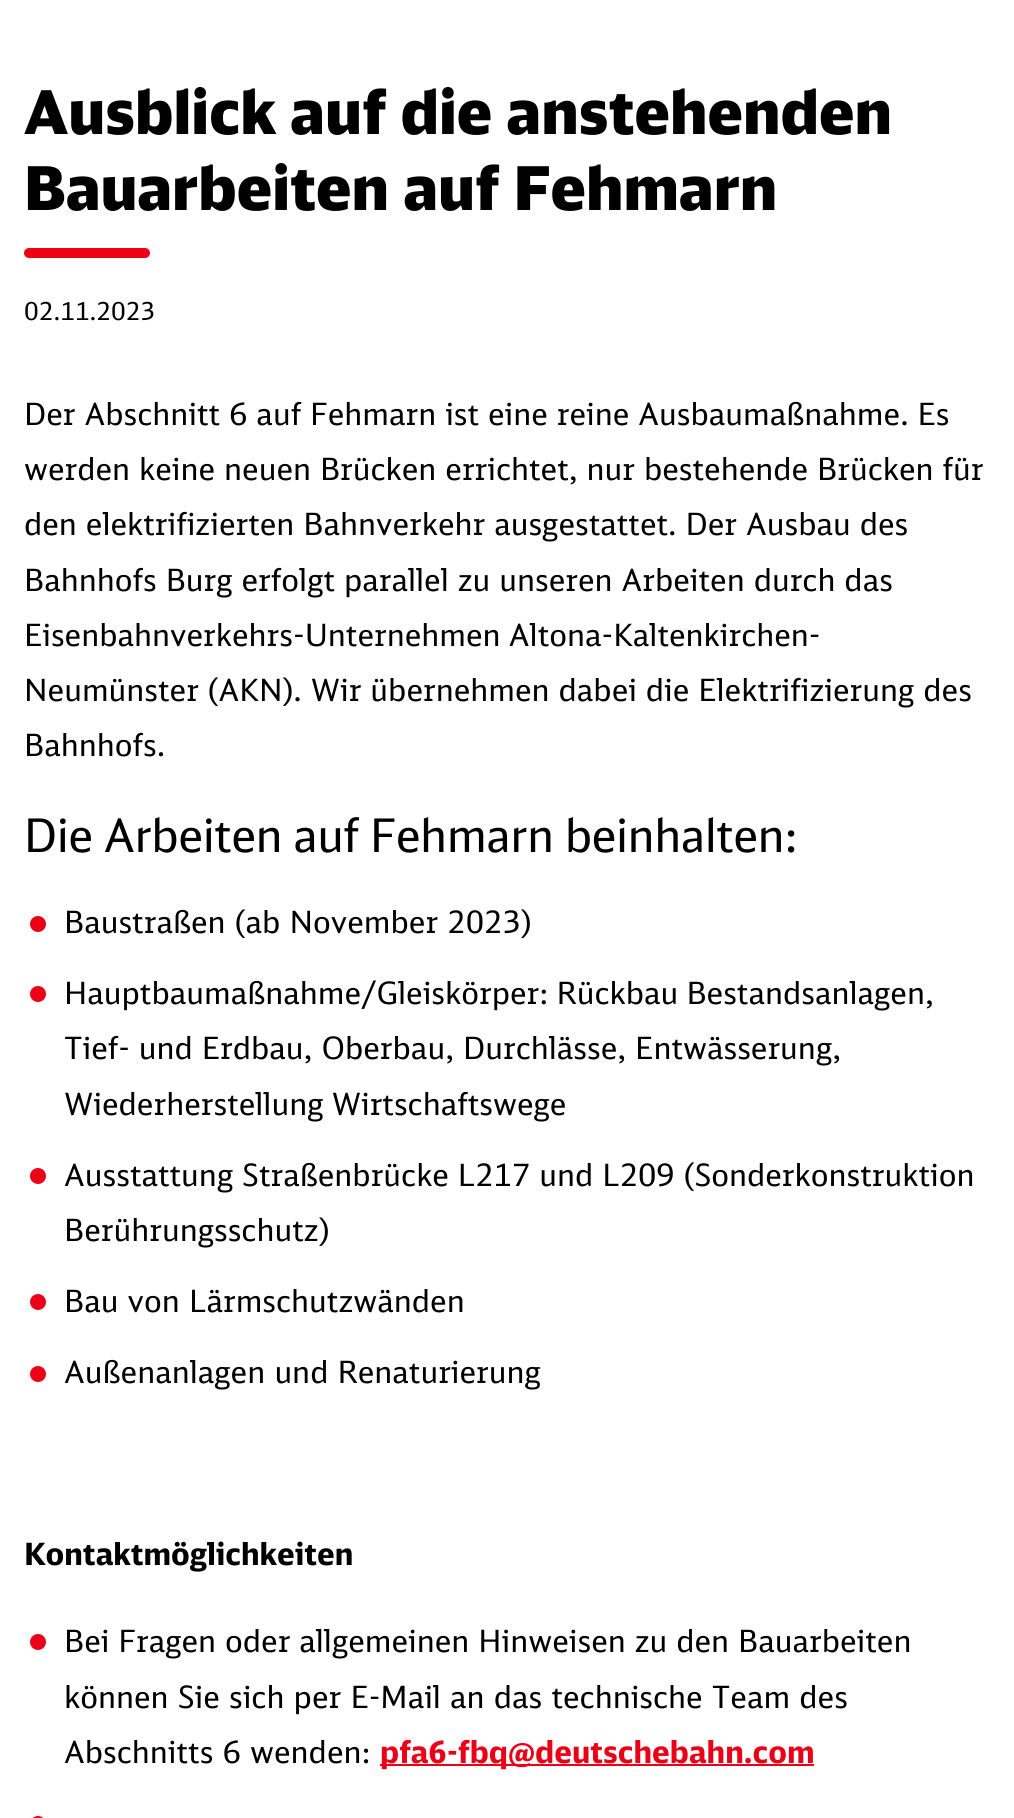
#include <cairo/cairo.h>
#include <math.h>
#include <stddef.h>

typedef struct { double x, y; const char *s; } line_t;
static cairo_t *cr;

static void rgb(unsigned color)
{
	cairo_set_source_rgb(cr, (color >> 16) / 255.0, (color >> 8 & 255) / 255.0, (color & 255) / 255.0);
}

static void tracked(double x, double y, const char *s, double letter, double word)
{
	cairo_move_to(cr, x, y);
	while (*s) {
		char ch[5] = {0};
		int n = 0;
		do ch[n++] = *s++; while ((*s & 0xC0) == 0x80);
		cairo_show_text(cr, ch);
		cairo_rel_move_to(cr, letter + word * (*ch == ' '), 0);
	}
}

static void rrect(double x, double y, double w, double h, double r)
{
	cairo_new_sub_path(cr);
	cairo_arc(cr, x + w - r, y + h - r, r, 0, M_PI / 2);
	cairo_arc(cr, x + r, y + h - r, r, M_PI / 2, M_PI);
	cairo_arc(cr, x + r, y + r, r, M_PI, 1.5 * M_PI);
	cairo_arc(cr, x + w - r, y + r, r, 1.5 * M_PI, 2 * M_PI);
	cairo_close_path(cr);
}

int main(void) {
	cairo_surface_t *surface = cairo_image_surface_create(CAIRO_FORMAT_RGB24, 1014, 1818);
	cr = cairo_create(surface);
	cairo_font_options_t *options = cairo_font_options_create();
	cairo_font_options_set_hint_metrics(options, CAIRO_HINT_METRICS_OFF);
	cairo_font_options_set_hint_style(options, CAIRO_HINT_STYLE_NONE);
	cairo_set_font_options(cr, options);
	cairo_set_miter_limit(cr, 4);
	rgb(0xffffff);
	cairo_paint(cr);
	rgb(0xec0016);
	rrect(24, 248, 126, 10, 5);
	cairo_fill(cr);
	cairo_arc(cr, 38, 924, 8, 0, 2 * M_PI);
	cairo_fill(cr);
	cairo_arc(cr, 38, 994, 8, 0, 2 * M_PI);
	cairo_fill(cr);
	cairo_arc(cr, 38, 1176, 8, 0, 2 * M_PI);
	cairo_fill(cr);
	cairo_arc(cr, 38, 1302, 8, 0, 2 * M_PI);
	cairo_fill(cr);
	cairo_arc(cr, 38, 1374, 8, 0, 2 * M_PI);
	cairo_fill(cr);
	cairo_arc(cr, 38, 1642, 8, 0, 2 * M_PI);
	cairo_fill(cr);
	cairo_rectangle(cr, 380, 1764, 434, 2);
	cairo_fill(cr);
	rrect(30, 1816, 16, 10, 8);
	cairo_fill(cr);
	cairo_select_font_face(cr, "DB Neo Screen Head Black", CAIRO_FONT_SLANT_NORMAL, CAIRO_FONT_WEIGHT_NORMAL);
	cairo_set_font_size(cr, 60.25);
	rgb(0x000000);
	cairo_move_to(cr, 24, 134);
	cairo_show_text(cr, "Ausblick auf die anstehenden");
	cairo_move_to(cr, 24, 210);
	cairo_show_text(cr, "Bauarbeiten auf Fehmarn");
	cairo_select_font_face(cr, "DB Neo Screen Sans", CAIRO_FONT_SLANT_NORMAL, CAIRO_FONT_WEIGHT_NORMAL);
	cairo_set_font_size(cr, 24.5);
	cairo_move_to(cr, 24, 320);
	cairo_show_text(cr, "02.11.2023");
	cairo_set_font_size(cr, 30.6);
	{
		static const line_t items[] = {
			{24, 425, "Der Abschnitt 6 auf Fehmarn ist eine reine Ausbaumaßnahme. Es"},
			{24, 480, "werden keine neuen Brücken errichtet, nur bestehende Brücken für"},
			{24, 535, "den elektrifizierten Bahnverkehr ausgestattet. Der Ausbau des"},
			{24, 591, "Bahnhofs Burg erfolgt parallel zu unseren Arbeiten durch das"},
		};
		for (size_t i = 0; i < sizeof items / sizeof *items; i++) {
			tracked(items[i].x, items[i].y, items[i].s, 0, -0.25);
		}
	}
	tracked(24, 646, "Eisenbahnverkehrs-Unternehmen Altona-Kaltenkirchen-", 0, -1);
	tracked(24, 701, "Neumünster (AKN). Wir übernehmen dabei die Elektrifizierung des", 0, -0.25);
	cairo_move_to(cr, 24, 756);
	cairo_show_text(cr, "Bahnhofs.");
	cairo_select_font_face(cr, "DB Neo Screen Head", CAIRO_FONT_SLANT_NORMAL, CAIRO_FONT_WEIGHT_NORMAL);
	cairo_set_font_size(cr, 46.1);
	cairo_move_to(cr, 24, 852);
	cairo_show_text(cr, "Die Arbeiten auf Fehmarn beinhalten:");
	cairo_select_font_face(cr, "DB Neo Screen Sans", CAIRO_FONT_SLANT_NORMAL, CAIRO_FONT_WEIGHT_NORMAL);
	cairo_set_font_size(cr, 30.6);
	cairo_move_to(cr, 64, 933);
	cairo_show_text(cr, "Baustraßen (ab November 2023)");
	tracked(64, 1004, "Hauptbaumaßnahme/Gleiskörper: Rückbau Bestandsanlagen,", 0, -1);
	tracked(64, 1059, "Tief- und Erdbau, Oberbau, Durchlässe, Entwässerung,", 0, -0.25);
	tracked(64, 1115, "Wiederherstellung Wirtschaftswege", 0, -1);
	tracked(64, 1186, "Ausstattung Straßenbrücke L217 und L209 (Sonderkonstruktion", 0, -0.25);
	{
		static const line_t items[] = {
			{64, 1241, "Berührungsschutz)"},
			{64, 1312, "Bau von Lärmschutzwänden"},
			{64, 1383, "Außenanlagen und Renaturierung"},
		};
		for (size_t i = 0; i < sizeof items / sizeof *items; i++) {
			cairo_move_to(cr, items[i].x, items[i].y);
			cairo_show_text(cr, items[i].s);
		}
	}
	cairo_select_font_face(cr, "DB Neo Screen Sans", CAIRO_FONT_SLANT_NORMAL, CAIRO_FONT_WEIGHT_BOLD);
	cairo_move_to(cr, 24, 1565);
	cairo_show_text(cr, "Kontaktmöglichkeiten");
	cairo_select_font_face(cr, "DB Neo Screen Sans", CAIRO_FONT_SLANT_NORMAL, CAIRO_FONT_WEIGHT_NORMAL);
	tracked(64, 1652, "Bei Fragen oder allgemeinen Hinweisen zu den Bauarbeiten", 0, -0.25);
	cairo_move_to(cr, 64, 1708);
	cairo_show_text(cr, "können Sie sich per E-Mail an das technische Team des");
	cairo_move_to(cr, 64, 1763);
	cairo_show_text(cr, "Abschnitts 6 wenden:");
	cairo_select_font_face(cr, "DB Neo Screen Sans", CAIRO_FONT_SLANT_NORMAL, CAIRO_FONT_WEIGHT_BOLD);
	rgb(0xec0016);
	cairo_move_to(cr, 380, 1763);
	cairo_show_text(cr, "pfa6-fbq@deutschebahn.com");
	cairo_surface_write_to_png(surface, "page.png");
	cairo_font_options_destroy(options);
	cairo_destroy(cr);
	cairo_surface_destroy(surface);
	return 0;
}
